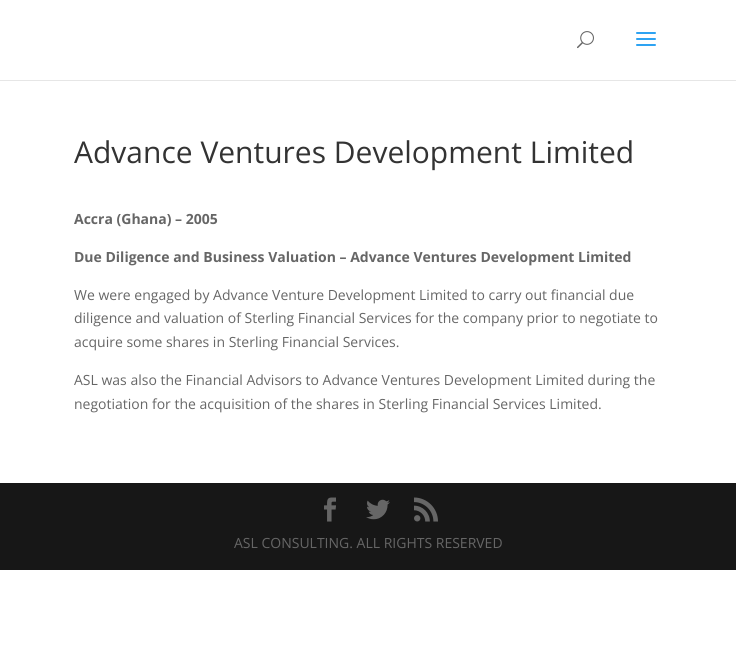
#include <cairo/cairo.h>
#include <math.h>
#include <stddef.h>

typedef struct { double x, y; const char *s; } line_t;
static cairo_t *cr;

static void rgb(unsigned color)
{
	cairo_set_source_rgb(cr, (color >> 16) / 255.0, (color >> 8 & 255) / 255.0, (color & 255) / 255.0);
}

static void image(const char *path, double x, double y, double w, double h)
{
	cairo_surface_t *image = cairo_image_surface_create_from_png(path);
	cairo_save(cr);
	cairo_set_source_surface(cr, image, x, y);
	cairo_rectangle(cr, x, y, w, h);
	cairo_fill(cr);
	cairo_restore(cr);
	cairo_surface_destroy(image);
}

int main(void) {
	cairo_surface_t *surface = cairo_image_surface_create(CAIRO_FORMAT_RGB24, 736, 646);
	cr = cairo_create(surface);
	cairo_font_options_t *options = cairo_font_options_create();
	cairo_font_options_set_hint_metrics(options, CAIRO_HINT_METRICS_OFF);
	cairo_font_options_set_hint_style(options, CAIRO_HINT_STYLE_NONE);
	cairo_set_font_options(cr, options);
	cairo_set_miter_limit(cr, 4);
	rgb(0xffffff);
	cairo_paint(cr);
	rgb(0xe6e6e6);
	cairo_rectangle(cr, 0, 80, 736, 1);
	cairo_fill(cr);
	image("img/1.png", 577, 31, 17, 18);
	image("img/2.png", 636, 32, 20, 14);
	rgb(0x171717);
	cairo_rectangle(cr, 0, 483, 736, 87);
	cairo_fill(cr);
	image("img/3.png", 324, 497, 12, 25);
	image("img/4.png", 366, 499, 24, 21);
	image("img/5.png", 414, 497, 24, 25);
	cairo_select_font_face(cr, "Open Sans", CAIRO_FONT_SLANT_NORMAL, CAIRO_FONT_WEIGHT_NORMAL);
	cairo_set_font_size(cr, 30);
	rgb(0x333333);
	cairo_move_to(cr, 74, 163);
	cairo_show_text(cr, "Advance Ventures Development Limited");
	cairo_select_font_face(cr, "Open Sans", CAIRO_FONT_SLANT_NORMAL, CAIRO_FONT_WEIGHT_BOLD);
	cairo_set_font_size(cr, 14);
	rgb(0x666666);
	cairo_move_to(cr, 74, 224);
	cairo_show_text(cr, "Accra (Ghana) – 2005");
	cairo_move_to(cr, 74, 262);
	cairo_show_text(cr, "Due Diligence and Business Valuation – Advance Ventures Development Limited");
	cairo_select_font_face(cr, "Open Sans", CAIRO_FONT_SLANT_NORMAL, CAIRO_FONT_WEIGHT_NORMAL);
	{
		static const line_t items[] = {
			{74, 300, "We were engaged by Advance Venture Development Limited to carry out financial due"},
			{74, 323, "diligence and valuation of Sterling Financial Services for the company prior to negotiate to"},
			{74, 347, "acquire some shares in Sterling Financial Services."},
			{74, 385, "ASL was also the Financial Advisors to Advance Ventures Development Limited during the"},
			{74, 409, "negotiation for the acquisition of the shares in Sterling Financial Services Limited."},
			{234, 548, "ASL CONSULTING. ALL RIGHTS RESERVED"},
		};
		for (size_t i = 0; i < sizeof items / sizeof *items; i++) {
			cairo_move_to(cr, items[i].x, items[i].y);
			cairo_show_text(cr, items[i].s);
		}
	}
	cairo_surface_write_to_png(surface, "page.png");
	cairo_font_options_destroy(options);
	cairo_destroy(cr);
	cairo_surface_destroy(surface);
	return 0;
}
